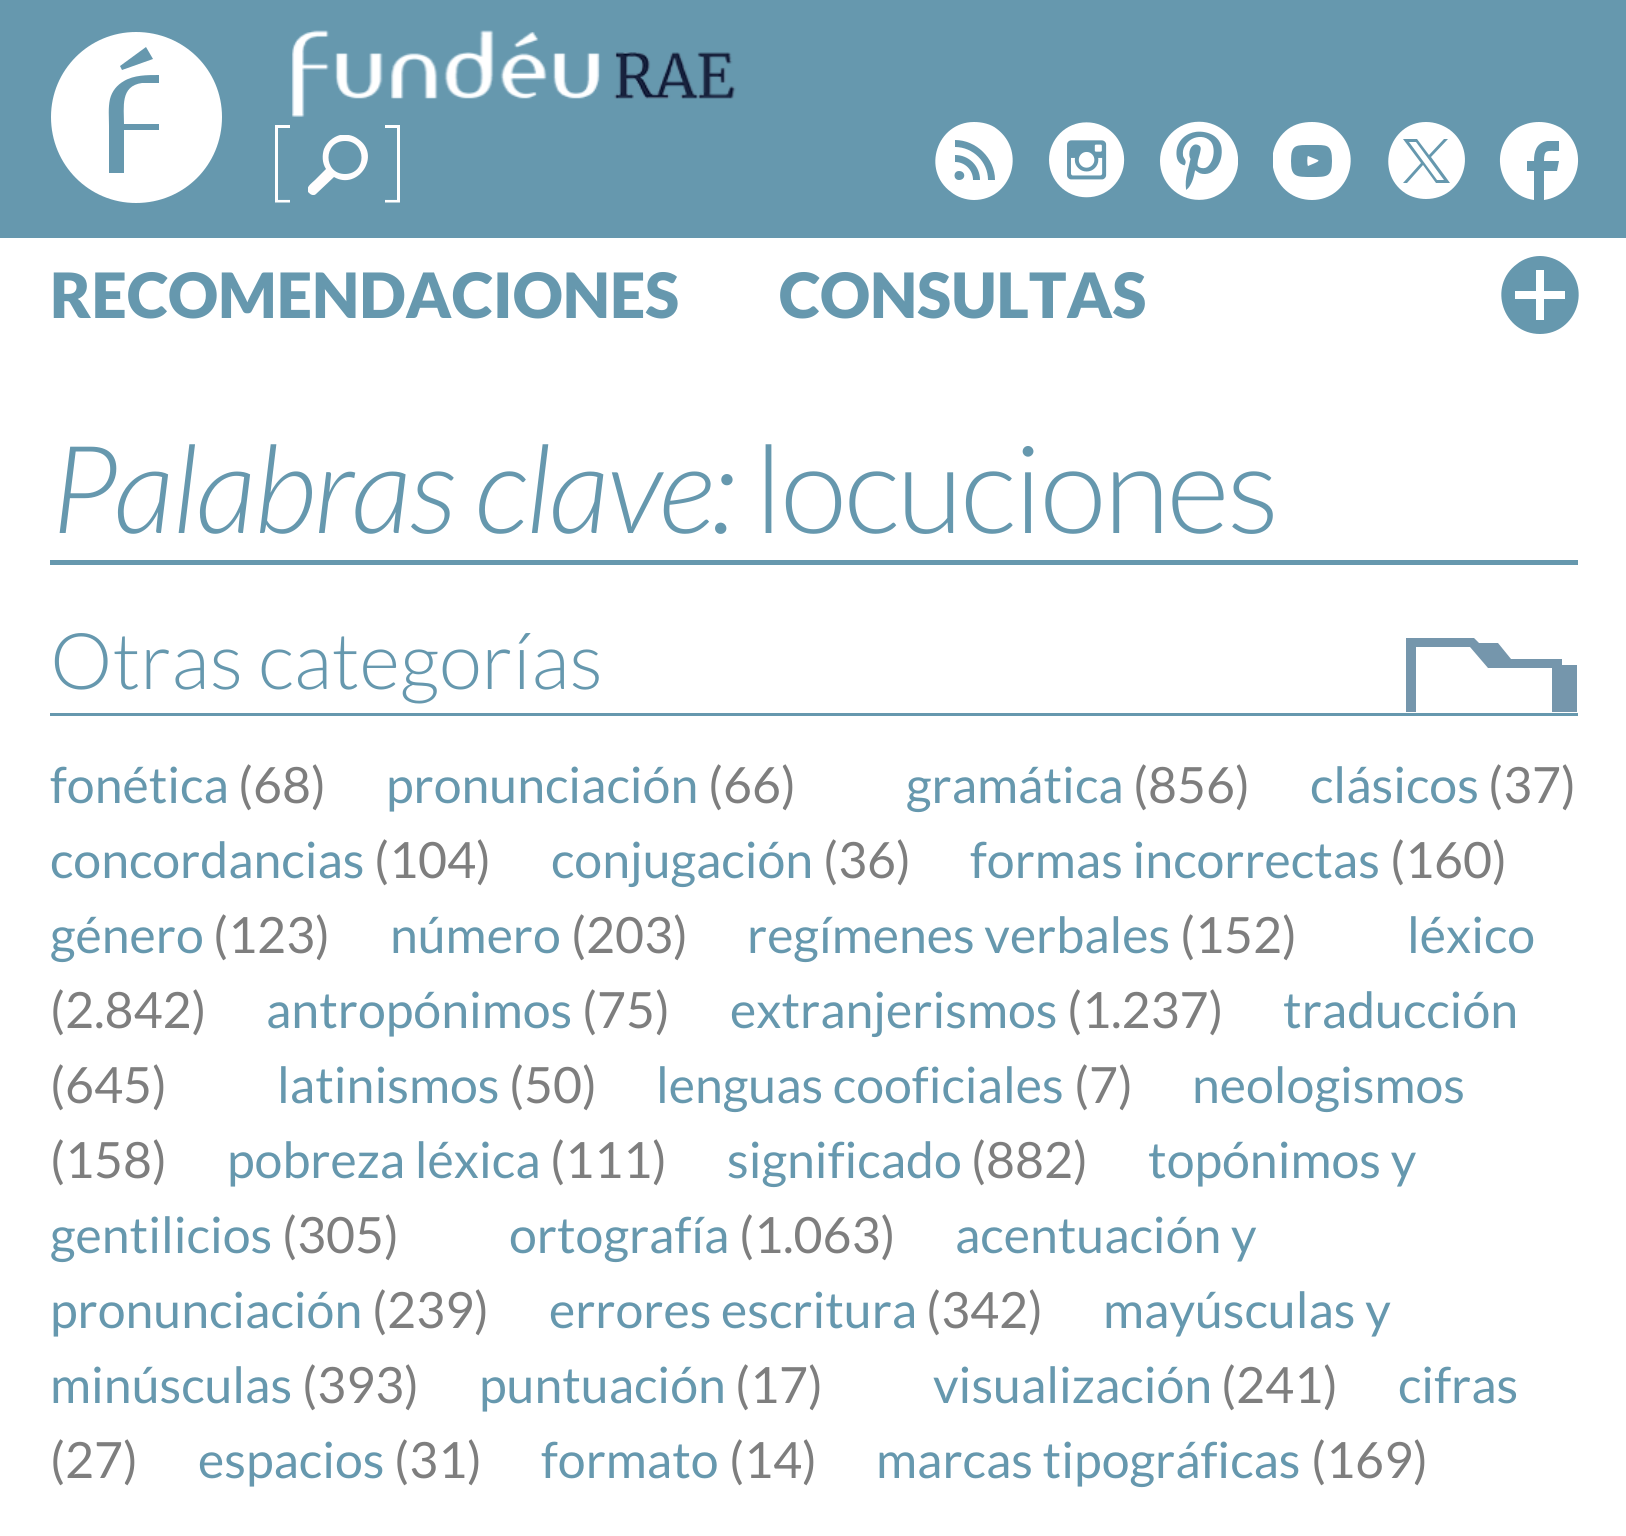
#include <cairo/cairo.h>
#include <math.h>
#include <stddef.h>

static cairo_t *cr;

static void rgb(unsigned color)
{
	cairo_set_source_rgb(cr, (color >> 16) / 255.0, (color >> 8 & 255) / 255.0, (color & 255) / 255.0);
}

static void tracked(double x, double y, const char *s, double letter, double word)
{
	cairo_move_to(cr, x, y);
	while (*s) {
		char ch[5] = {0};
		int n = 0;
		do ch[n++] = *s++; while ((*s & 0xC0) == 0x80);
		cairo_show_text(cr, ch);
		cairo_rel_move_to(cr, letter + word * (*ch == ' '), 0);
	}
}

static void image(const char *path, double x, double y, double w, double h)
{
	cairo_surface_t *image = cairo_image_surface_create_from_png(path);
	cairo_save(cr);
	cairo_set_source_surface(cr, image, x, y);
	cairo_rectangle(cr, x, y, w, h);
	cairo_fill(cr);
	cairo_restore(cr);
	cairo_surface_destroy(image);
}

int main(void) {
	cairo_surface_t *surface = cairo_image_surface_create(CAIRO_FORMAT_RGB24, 1626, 1536);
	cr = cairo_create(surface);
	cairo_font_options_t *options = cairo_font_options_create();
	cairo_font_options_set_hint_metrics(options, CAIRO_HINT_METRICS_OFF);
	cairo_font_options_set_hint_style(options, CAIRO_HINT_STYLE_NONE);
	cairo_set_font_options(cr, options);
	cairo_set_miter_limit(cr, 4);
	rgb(0xffffff);
	cairo_paint(cr);
	rgb(0x6698ae);
	cairo_rectangle(cr, 0, 0, 1626, 238);
	cairo_fill(cr);
	rgb(0xffffff);
	cairo_new_path(cr);
	cairo_move_to(cr, 136, 32);
	cairo_curve_to(cr, 89, 32, 51, 70, 51, 117);
	cairo_curve_to(cr, 51, 165, 89, 203, 136, 203);
	cairo_curve_to(cr, 184, 203, 222, 165, 222, 117);
	cairo_curve_to(cr, 222, 70, 184, 32, 136, 32);
	cairo_close_path(cr);
	cairo_move_to(cr, 146, 47);
	cairo_line_to(cr, 153, 59);
	cairo_line_to(cr, 122, 70);
	cairo_line_to(cr, 120, 66);
	cairo_close_path(cr);
	cairo_move_to(cr, 159, 130);
	cairo_line_to(cr, 124, 130);
	cairo_line_to(cr, 124, 173);
	cairo_line_to(cr, 109, 173);
	cairo_line_to(cr, 109, 126);
	cairo_curve_to(cr, 109, 117, 108, 108, 110, 99);
	cairo_curve_to(cr, 112, 91, 117, 85, 124, 81);
	cairo_curve_to(cr, 134, 75, 147, 75, 159, 75);
	cairo_line_to(cr, 159, 83);
	cairo_line_to(cr, 142, 83);
	cairo_curve_to(cr, 120, 86, 124, 107, 124, 124);
	cairo_line_to(cr, 159, 124);
	cairo_close_path(cr);
	cairo_fill(cr);
	image("img/1.png", 292, 30, 444, 87);
	image("img/2.png", 275, 125, 125, 78);
	cairo_save(cr);
	cairo_rectangle(cr, 308, 135, 60, 60);
	cairo_clip(cr);
	rgb(0xfffdfd);
	cairo_set_fill_rule(cr, CAIRO_FILL_RULE_EVEN_ODD);
	cairo_new_path(cr);
	cairo_move_to(cr, 326, 169);
	cairo_curve_to(cr, 322, 163, 322, 155, 324, 149);
	cairo_curve_to(cr, 327, 142, 333, 137, 340, 135);
	cairo_curve_to(cr, 346, 134, 353, 135, 358, 139);
	cairo_curve_to(cr, 382, 155, 358, 191, 334, 177);
	cairo_line_to(cr, 316, 194);
	cairo_curve_to(cr, 314, 196, 311, 195, 309, 193);
	cairo_curve_to(cr, 304, 188, 312, 183, 315, 180);
	cairo_close_path(cr);
	cairo_move_to(cr, 345, 141);
	cairo_curve_to(cr, 323, 141, 323, 174, 345, 174);
	cairo_curve_to(cr, 367, 174, 367, 141, 345, 141);
	cairo_fill(cr);
	cairo_restore(cr);
	cairo_new_path(cr);
	cairo_move_to(cr, 974, 122);
	cairo_curve_to(cr, 937, 122, 921, 170, 951, 192);
	cairo_curve_to(cr, 957, 197, 966, 200, 974, 200);
	cairo_curve_to(cr, 1011, 200, 1027, 152, 997, 129);
	cairo_curve_to(cr, 991, 124, 982, 122, 974, 122);
	cairo_close_path(cr);
	cairo_move_to(cr, 959, 180);
	cairo_curve_to(cr, 953, 180, 953, 171, 959, 171);
	cairo_curve_to(cr, 966, 171, 966, 180, 959, 180);
	cairo_close_path(cr);
	cairo_move_to(cr, 973, 180);
	cairo_curve_to(cr, 973, 170, 965, 162, 955, 162);
	cairo_line_to(cr, 955, 155);
	cairo_curve_to(cr, 969, 155, 980, 166, 980, 180);
	cairo_close_path(cr);
	cairo_move_to(cr, 988, 180);
	cairo_curve_to(cr, 988, 162, 973, 147, 955, 147);
	cairo_line_to(cr, 955, 140);
	cairo_curve_to(cr, 976, 140, 995, 158, 995, 180);
	cairo_close_path(cr);
	cairo_fill(cr);
	image("img/3.png", 1049, 122, 76, 76);
	image("img/4.png", 1160, 121, 78, 79);
	cairo_save(cr);
	cairo_rectangle(cr, 1273, 118, 80, 95);
	cairo_clip(cr);
	cairo_new_path(cr);
	cairo_move_to(cr, 1318, 160);
	cairo_line_to(cr, 1308, 156);
	cairo_curve_to(cr, 1307, 156, 1307, 165, 1308, 166);
	cairo_line_to(cr, 1315, 163);
	cairo_curve_to(cr, 1315, 163, 1320, 161, 1318, 160);
	cairo_close_path(cr);
	cairo_move_to(cr, 1312, 122);
	cairo_curve_to(cr, 1303, 122, 1295, 124, 1288, 129);
	cairo_curve_to(cr, 1258, 152, 1274, 200, 1312, 200);
	cairo_curve_to(cr, 1349, 200, 1365, 152, 1335, 129);
	cairo_curve_to(cr, 1328, 124, 1320, 122, 1312, 122);
	cairo_close_path(cr);
	cairo_move_to(cr, 1312, 177);
	cairo_curve_to(cr, 1296, 177, 1291, 177, 1291, 161);
	cairo_curve_to(cr, 1291, 144, 1296, 145, 1312, 145);
	cairo_curve_to(cr, 1327, 145, 1332, 144, 1332, 161);
	cairo_curve_to(cr, 1332, 177, 1327, 177, 1312, 177);
	cairo_close_path(cr);
	cairo_fill(cr);
	cairo_restore(cr);
	cairo_new_path(cr);
	cairo_move_to(cr, 1409, 142);
	cairo_line_to(cr, 1437, 180);
	cairo_line_to(cr, 1444, 180);
	cairo_line_to(cr, 1416, 142);
	cairo_close_path(cr);
	cairo_move_to(cr, 1426, 122);
	cairo_curve_to(cr, 1389, 122, 1374, 172, 1405, 193);
	cairo_curve_to(cr, 1411, 197, 1419, 199, 1426, 199);
	cairo_curve_to(cr, 1463, 199, 1479, 152, 1450, 130);
	cairo_curve_to(cr, 1443, 125, 1435, 122, 1426, 122);
	cairo_close_path(cr);
	cairo_move_to(cr, 1436, 183);
	cairo_line_to(cr, 1423, 165);
	cairo_line_to(cr, 1407, 183);
	cairo_line_to(cr, 1403, 183);
	cairo_line_to(cr, 1421, 163);
	cairo_line_to(cr, 1403, 139);
	cairo_line_to(cr, 1417, 139);
	cairo_line_to(cr, 1429, 155);
	cairo_line_to(cr, 1444, 139);
	cairo_line_to(cr, 1448, 139);
	cairo_line_to(cr, 1431, 157);
	cairo_line_to(cr, 1450, 183);
	cairo_close_path(cr);
	cairo_fill(cr);
	cairo_new_path(cr);
	cairo_move_to(cr, 1539, 122);
	cairo_curve_to(cr, 1547, 122, 1554, 124, 1561, 128);
	cairo_curve_to(cr, 1591, 149, 1579, 195, 1544, 200);
	cairo_line_to(cr, 1544, 171);
	cairo_line_to(cr, 1557, 171);
	cairo_line_to(cr, 1559, 161);
	cairo_line_to(cr, 1544, 161);
	cairo_curve_to(cr, 1544, 149, 1547, 151, 1559, 151);
	cairo_line_to(cr, 1559, 141);
	cairo_line_to(cr, 1547, 141);
	cairo_curve_to(cr, 1536, 143, 1534, 152, 1534, 161);
	cairo_line_to(cr, 1527, 161);
	cairo_line_to(cr, 1527, 171);
	cairo_line_to(cr, 1534, 171);
	cairo_line_to(cr, 1534, 200);
	cairo_curve_to(cr, 1499, 195, 1487, 149, 1517, 128);
	cairo_curve_to(cr, 1524, 124, 1531, 122, 1539, 122);
	cairo_close_path(cr);
	cairo_fill(cr);
	rgb(0x6698ae);
	cairo_new_path(cr);
	cairo_move_to(cr, 1540, 256);
	cairo_curve_to(cr, 1532, 256, 1523, 259, 1517, 264);
	cairo_curve_to(cr, 1487, 286, 1503, 334, 1540, 334);
	cairo_curve_to(cr, 1577, 334, 1593, 286, 1563, 264);
	cairo_curve_to(cr, 1557, 259, 1548, 256, 1540, 256);
	cairo_close_path(cr);
	cairo_move_to(cr, 1565, 299);
	cairo_line_to(cr, 1544, 299);
	cairo_line_to(cr, 1544, 320);
	cairo_line_to(cr, 1536, 320);
	cairo_line_to(cr, 1536, 299);
	cairo_line_to(cr, 1515, 299);
	cairo_line_to(cr, 1515, 291);
	cairo_line_to(cr, 1536, 291);
	cairo_line_to(cr, 1536, 270);
	cairo_line_to(cr, 1544, 270);
	cairo_line_to(cr, 1544, 291);
	cairo_line_to(cr, 1565, 291);
	cairo_close_path(cr);
	cairo_fill(cr);
	cairo_rectangle(cr, 50, 560, 1528, 5);
	cairo_fill(cr);
	rgb(0x7596ac);
	cairo_new_path(cr);
	cairo_move_to(cr, 1562, 665);
	cairo_line_to(cr, 1562, 659);
	cairo_line_to(cr, 1511, 659);
	cairo_line_to(cr, 1498, 643);
	cairo_line_to(cr, 1479, 643);
	cairo_line_to(cr, 1474, 638);
	cairo_line_to(cr, 1406, 638);
	cairo_line_to(cr, 1406, 712);
	cairo_line_to(cr, 1416, 712);
	cairo_line_to(cr, 1416, 647);
	cairo_line_to(cr, 1470, 647);
	cairo_line_to(cr, 1488, 668);
	cairo_line_to(cr, 1552, 668);
	cairo_line_to(cr, 1552, 712);
	cairo_line_to(cr, 1577, 712);
	cairo_line_to(cr, 1577, 665);
	cairo_close_path(cr);
	cairo_fill(cr);
	rgb(0x6698ae);
	cairo_rectangle(cr, 50, 713, 1528, 3);
	cairo_fill(cr);
	cairo_select_font_face(cr, "Lato Black", CAIRO_FONT_SLANT_NORMAL, CAIRO_FONT_WEIGHT_NORMAL);
	cairo_set_font_size(cr, 62.5);
	cairo_move_to(cr, 50, 318);
	cairo_show_text(cr, "RECOMENDACIONES");
	cairo_move_to(cr, 779, 318);
	cairo_show_text(cr, "CONSULTAS");
	cairo_select_font_face(cr, "Lato Light", CAIRO_FONT_SLANT_ITALIC, CAIRO_FONT_WEIGHT_NORMAL);
	cairo_set_font_size(cr, 122);
	tracked(50, 533, "Palabras clave:", -2.5, 0);
	cairo_select_font_face(cr, "Lato Light", CAIRO_FONT_SLANT_NORMAL, CAIRO_FONT_WEIGHT_NORMAL);
	tracked(754, 533, "locuciones", -2.5, 0);
	cairo_set_font_size(cr, 78.25);
	cairo_move_to(cr, 50, 689);
	cairo_show_text(cr, "Otras categorías");
	cairo_select_font_face(cr, "Lato", CAIRO_FONT_SLANT_NORMAL, CAIRO_FONT_WEIGHT_NORMAL);
	cairo_set_font_size(cr, 50);
	cairo_move_to(cr, 50, 803);
	cairo_show_text(cr, "fonética");
	rgb(0x7e7e7e);
	cairo_move_to(cr, 238, 803);
	cairo_show_text(cr, "(68)");
	rgb(0x6698ae);
	cairo_move_to(cr, 386, 803);
	cairo_show_text(cr, "pronunciación");
	rgb(0x7e7e7e);
	cairo_move_to(cr, 708, 803);
	cairo_show_text(cr, "(66)");
	rgb(0x6698ae);
	cairo_move_to(cr, 906, 803);
	cairo_show_text(cr, "gramática");
	rgb(0x7e7e7e);
	cairo_move_to(cr, 1133, 803);
	cairo_show_text(cr, "(856)");
	rgb(0x6698ae);
	cairo_move_to(cr, 1310, 803);
	cairo_show_text(cr, "clásicos");
	rgb(0x7e7e7e);
	cairo_move_to(cr, 1488, 803);
	cairo_show_text(cr, "(37)");
	rgb(0x6698ae);
	cairo_move_to(cr, 50, 878);
	cairo_show_text(cr, "concordancias");
	rgb(0x7e7e7e);
	cairo_move_to(cr, 374, 878);
	cairo_show_text(cr, "(104)");
	rgb(0x6698ae);
	cairo_move_to(cr, 551, 878);
	cairo_show_text(cr, "conjugación");
	rgb(0x7e7e7e);
	cairo_move_to(cr, 823, 878);
	cairo_show_text(cr, "(36)");
	rgb(0x6698ae);
	cairo_move_to(cr, 970, 878);
	cairo_show_text(cr, "formas incorrectas");
	rgb(0x7e7e7e);
	cairo_move_to(cr, 1390, 878);
	cairo_show_text(cr, "(160)");
	rgb(0x6698ae);
	cairo_move_to(cr, 50, 953);
	cairo_show_text(cr, "género");
	rgb(0x7e7e7e);
	cairo_move_to(cr, 213, 953);
	cairo_show_text(cr, "(123)");
	rgb(0x6698ae);
	cairo_move_to(cr, 390, 953);
	cairo_show_text(cr, "número");
	rgb(0x7e7e7e);
	cairo_move_to(cr, 571, 953);
	cairo_show_text(cr, "(203)");
	rgb(0x6698ae);
	cairo_move_to(cr, 747, 953);
	cairo_show_text(cr, "regímenes verbales");
	rgb(0x7e7e7e);
	cairo_move_to(cr, 1180, 953);
	cairo_show_text(cr, "(152)");
	rgb(0x6698ae);
	cairo_move_to(cr, 1407, 953);
	cairo_show_text(cr, "léxico");
	rgb(0x7e7e7e);
	cairo_move_to(cr, 50, 1028);
	cairo_show_text(cr, "(2.842)");
	rgb(0x6698ae);
	cairo_move_to(cr, 266, 1028);
	cairo_show_text(cr, "antropónimos");
	rgb(0x7e7e7e);
	cairo_move_to(cr, 582, 1028);
	cairo_show_text(cr, "(75)");
	rgb(0x6698ae);
	cairo_move_to(cr, 730, 1028);
	cairo_show_text(cr, "extranjerismos");
	rgb(0x7e7e7e);
	cairo_move_to(cr, 1067, 1028);
	cairo_show_text(cr, "(1.237)");
	rgb(0x6698ae);
	cairo_move_to(cr, 1283, 1028);
	cairo_show_text(cr, "traducción");
	rgb(0x7e7e7e);
	cairo_move_to(cr, 50, 1103);
	cairo_show_text(cr, "(645)");
	rgb(0x6698ae);
	cairo_move_to(cr, 277, 1103);
	cairo_show_text(cr, "latinismos");
	rgb(0x7e7e7e);
	cairo_move_to(cr, 509, 1103);
	cairo_show_text(cr, "(50)");
	rgb(0x6698ae);
	cairo_move_to(cr, 656, 1103);
	cairo_show_text(cr, "lenguas cooficiales");
	rgb(0x7e7e7e);
	cairo_move_to(cr, 1074, 1103);
	cairo_show_text(cr, "(7)");
	rgb(0x6698ae);
	cairo_move_to(cr, 1192, 1103);
	cairo_show_text(cr, "neologismos");
	rgb(0x7e7e7e);
	cairo_move_to(cr, 50, 1178);
	cairo_show_text(cr, "(158)");
	rgb(0x6698ae);
	cairo_move_to(cr, 227, 1178);
	cairo_show_text(cr, "pobreza léxica");
	rgb(0x7e7e7e);
	cairo_move_to(cr, 550, 1178);
	cairo_show_text(cr, "(111)");
	rgb(0x6698ae);
	cairo_move_to(cr, 727, 1178);
	cairo_show_text(cr, "significado");
	rgb(0x7e7e7e);
	cairo_move_to(cr, 971, 1178);
	cairo_show_text(cr, "(882)");
	rgb(0x6698ae);
	cairo_move_to(cr, 1148, 1178);
	cairo_show_text(cr, "topónimos y");
	cairo_move_to(cr, 50, 1253);
	cairo_show_text(cr, "gentilicios");
	rgb(0x7e7e7e);
	cairo_move_to(cr, 282, 1253);
	cairo_show_text(cr, "(305)");
	rgb(0x6698ae);
	cairo_move_to(cr, 509, 1253);
	cairo_show_text(cr, "ortografía");
	rgb(0x7e7e7e);
	cairo_move_to(cr, 739, 1253);
	cairo_show_text(cr, "(1.063)");
	rgb(0x6698ae);
	cairo_move_to(cr, 955, 1253);
	cairo_show_text(cr, "acentuación y");
	cairo_move_to(cr, 50, 1328);
	cairo_show_text(cr, "pronunciación");
	rgb(0x7e7e7e);
	cairo_move_to(cr, 372, 1328);
	cairo_show_text(cr, "(239)");
	rgb(0x6698ae);
	cairo_move_to(cr, 549, 1328);
	cairo_show_text(cr, "errores escritura");
	rgb(0x7e7e7e);
	cairo_move_to(cr, 926, 1328);
	cairo_show_text(cr, "(342)");
	rgb(0x6698ae);
	cairo_move_to(cr, 1103, 1328);
	cairo_show_text(cr, "mayúsculas y");
	cairo_move_to(cr, 50, 1403);
	cairo_show_text(cr, "minúsculas");
	rgb(0x7e7e7e);
	cairo_move_to(cr, 302, 1403);
	cairo_show_text(cr, "(393)");
	rgb(0x6698ae);
	cairo_move_to(cr, 479, 1403);
	cairo_show_text(cr, "puntuación");
	rgb(0x7e7e7e);
	cairo_move_to(cr, 735, 1403);
	cairo_show_text(cr, "(17)");
	rgb(0x6698ae);
	cairo_move_to(cr, 933, 1403);
	cairo_show_text(cr, "visualización");
	rgb(0x7e7e7e);
	cairo_move_to(cr, 1221, 1403);
	cairo_show_text(cr, "(241)");
	rgb(0x6698ae);
	cairo_move_to(cr, 1398, 1403);
	cairo_show_text(cr, "cifras");
	rgb(0x7e7e7e);
	cairo_move_to(cr, 50, 1478);
	cairo_show_text(cr, "(27)");
	rgb(0x6698ae);
	cairo_move_to(cr, 198, 1478);
	cairo_show_text(cr, "espacios");
	rgb(0x7e7e7e);
	cairo_move_to(cr, 394, 1478);
	cairo_show_text(cr, "(31)");
	rgb(0x6698ae);
	cairo_move_to(cr, 541, 1478);
	cairo_show_text(cr, "formato");
	rgb(0x7e7e7e);
	cairo_move_to(cr, 729, 1478);
	cairo_show_text(cr, "(14)");
	rgb(0x6698ae);
	cairo_move_to(cr, 876, 1478);
	cairo_show_text(cr, "marcas tipográficas");
	rgb(0x7e7e7e);
	cairo_move_to(cr, 1311, 1478);
	cairo_show_text(cr, "(169)");
	cairo_surface_write_to_png(surface, "page.png");
	cairo_font_options_destroy(options);
	cairo_destroy(cr);
	cairo_surface_destroy(surface);
	return 0;
}
